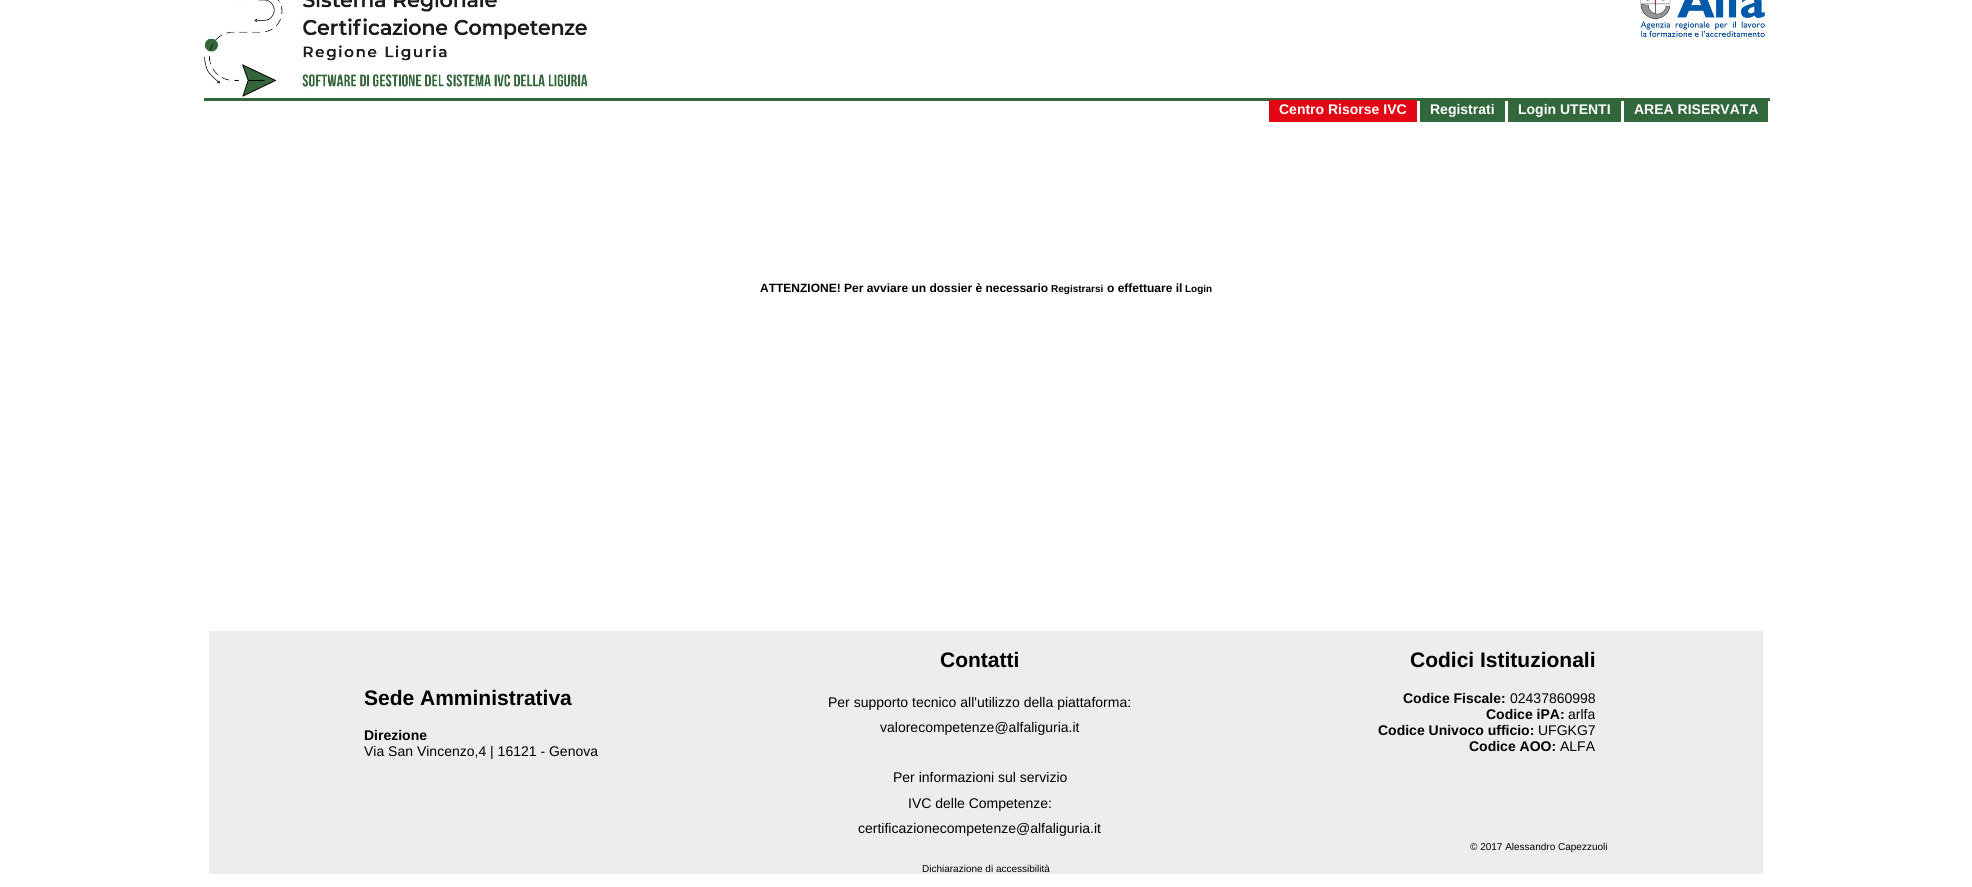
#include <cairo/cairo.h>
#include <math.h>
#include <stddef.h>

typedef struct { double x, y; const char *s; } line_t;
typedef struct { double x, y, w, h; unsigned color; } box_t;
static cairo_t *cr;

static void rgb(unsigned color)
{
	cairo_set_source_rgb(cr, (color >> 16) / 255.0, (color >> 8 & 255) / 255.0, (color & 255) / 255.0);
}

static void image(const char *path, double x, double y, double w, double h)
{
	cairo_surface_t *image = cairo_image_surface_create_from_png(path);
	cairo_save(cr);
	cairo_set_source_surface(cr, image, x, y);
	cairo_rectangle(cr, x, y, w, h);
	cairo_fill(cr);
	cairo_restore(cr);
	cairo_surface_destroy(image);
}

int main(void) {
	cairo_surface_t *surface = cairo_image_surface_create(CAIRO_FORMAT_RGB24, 1972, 887);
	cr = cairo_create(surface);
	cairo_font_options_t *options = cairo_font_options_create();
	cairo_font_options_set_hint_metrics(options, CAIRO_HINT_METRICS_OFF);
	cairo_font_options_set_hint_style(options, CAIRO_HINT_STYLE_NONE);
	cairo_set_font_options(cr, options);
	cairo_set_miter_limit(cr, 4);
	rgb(0xffffff);
	cairo_paint(cr);
	image("img/1.png", 204, 0, 384, 97);
	image("img/2.png", 1640, 0, 125, 37);
	{
		static const box_t items[] = {
			{204, 98, 1566, 3, 0x32673b},
			{1269, 100, 148, 22, 0xe30613},
			{1420, 101, 85, 21, 0x32673b},
			{1508, 101, 113, 21, 0x32673b},
			{1624, 101, 144, 21, 0x32673b},
			{209, 631, 1554, 243, 0xededed},
		};
		for (size_t i = 0; i < sizeof items / sizeof *items; i++) {
			rgb(items[i].color);
			cairo_rectangle(cr, items[i].x, items[i].y, items[i].w, items[i].h);
			cairo_fill(cr);
		}
	}
	cairo_select_font_face(cr, "Liberation Sans", CAIRO_FONT_SLANT_NORMAL, CAIRO_FONT_WEIGHT_BOLD);
	cairo_set_font_size(cr, 14);
	rgb(0xffffff);
	{
		static const line_t items[] = {
			{1279, 114, "Centro Risorse IVC"},
			{1430, 114, "Registrati"},
			{1518, 114, "Login UTENTI"},
			{1634, 114, "AREA RISERVATA"},
		};
		for (size_t i = 0; i < sizeof items / sizeof *items; i++) {
			cairo_move_to(cr, items[i].x, items[i].y);
			cairo_show_text(cr, items[i].s);
		}
	}
	cairo_set_font_size(cr, 12);
	rgb(0x000000);
	cairo_move_to(cr, 760, 292);
	cairo_show_text(cr, "ATTENZIONE! Per avviare un dossier è necessario");
	cairo_set_font_size(cr, 10);
	cairo_move_to(cr, 1051, 292);
	cairo_show_text(cr, "Registrarsi");
	cairo_set_font_size(cr, 12);
	cairo_move_to(cr, 1107, 292);
	cairo_show_text(cr, "o effettuare il");
	cairo_set_font_size(cr, 10);
	cairo_move_to(cr, 1185, 292);
	cairo_show_text(cr, "Login");
	cairo_set_font_size(cr, 21);
	cairo_move_to(cr, 364, 705);
	cairo_show_text(cr, "Sede Amministrativa");
	cairo_set_font_size(cr, 14);
	cairo_move_to(cr, 364, 740);
	cairo_show_text(cr, "Direzione");
	cairo_select_font_face(cr, "Liberation Sans", CAIRO_FONT_SLANT_NORMAL, CAIRO_FONT_WEIGHT_NORMAL);
	cairo_move_to(cr, 364, 756);
	cairo_show_text(cr, "Via San Vincenzo,4 | 16121 - Genova");
	cairo_select_font_face(cr, "Liberation Sans", CAIRO_FONT_SLANT_NORMAL, CAIRO_FONT_WEIGHT_BOLD);
	cairo_set_font_size(cr, 21);
	cairo_move_to(cr, 940, 667);
	cairo_show_text(cr, "Contatti");
	cairo_select_font_face(cr, "Liberation Sans", CAIRO_FONT_SLANT_NORMAL, CAIRO_FONT_WEIGHT_NORMAL);
	cairo_set_font_size(cr, 14);
	{
		static const line_t items[] = {
			{828, 707, "Per supporto tecnico all'utilizzo della piattaforma:"},
			{880, 732, "valorecompetenze@alfaliguria.it"},
			{893, 782, "Per informazioni sul servizio"},
			{908, 808, "IVC delle Competenze:"},
			{858, 833, "certificazionecompetenze@alfaliguria.it"},
		};
		for (size_t i = 0; i < sizeof items / sizeof *items; i++) {
			cairo_move_to(cr, items[i].x, items[i].y);
			cairo_show_text(cr, items[i].s);
		}
	}
	cairo_select_font_face(cr, "Liberation Sans", CAIRO_FONT_SLANT_NORMAL, CAIRO_FONT_WEIGHT_BOLD);
	cairo_set_font_size(cr, 21);
	cairo_move_to(cr, 1410, 667);
	cairo_show_text(cr, "Codici Istituzionali");
	cairo_set_font_size(cr, 14);
	cairo_move_to(cr, 1403, 703);
	cairo_show_text(cr, "Codice Fiscale:");
	cairo_select_font_face(cr, "Liberation Sans", CAIRO_FONT_SLANT_NORMAL, CAIRO_FONT_WEIGHT_NORMAL);
	cairo_move_to(cr, 1510, 703);
	cairo_show_text(cr, "02437860998");
	cairo_select_font_face(cr, "Liberation Sans", CAIRO_FONT_SLANT_NORMAL, CAIRO_FONT_WEIGHT_BOLD);
	cairo_move_to(cr, 1486, 719);
	cairo_show_text(cr, "Codice iPA:");
	cairo_select_font_face(cr, "Liberation Sans", CAIRO_FONT_SLANT_NORMAL, CAIRO_FONT_WEIGHT_NORMAL);
	cairo_move_to(cr, 1568, 719);
	cairo_show_text(cr, "arlfa");
	cairo_select_font_face(cr, "Liberation Sans", CAIRO_FONT_SLANT_NORMAL, CAIRO_FONT_WEIGHT_BOLD);
	cairo_move_to(cr, 1378, 735);
	cairo_show_text(cr, "Codice Univoco ufficio:");
	cairo_select_font_face(cr, "Liberation Sans", CAIRO_FONT_SLANT_NORMAL, CAIRO_FONT_WEIGHT_NORMAL);
	cairo_move_to(cr, 1538, 735);
	cairo_show_text(cr, "UFGKG7");
	cairo_select_font_face(cr, "Liberation Sans", CAIRO_FONT_SLANT_NORMAL, CAIRO_FONT_WEIGHT_BOLD);
	cairo_move_to(cr, 1469, 751);
	cairo_show_text(cr, "Codice AOO:");
	cairo_select_font_face(cr, "Liberation Sans", CAIRO_FONT_SLANT_NORMAL, CAIRO_FONT_WEIGHT_NORMAL);
	cairo_move_to(cr, 1560, 751);
	cairo_show_text(cr, "ALFA");
	cairo_set_font_size(cr, 10);
	cairo_move_to(cr, 1470, 850);
	cairo_show_text(cr, "© 2017 Alessandro Capezzuoli");
	cairo_move_to(cr, 922, 872);
	cairo_show_text(cr, "Dichiarazione di accessibilità");
	cairo_surface_write_to_png(surface, "page.png");
	cairo_font_options_destroy(options);
	cairo_destroy(cr);
	cairo_surface_destroy(surface);
	return 0;
}
